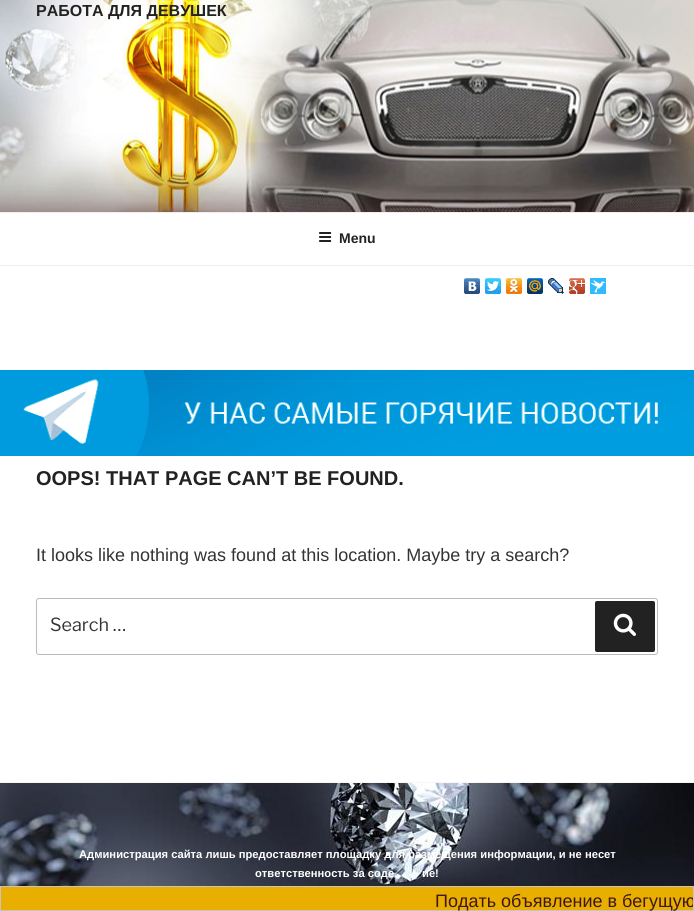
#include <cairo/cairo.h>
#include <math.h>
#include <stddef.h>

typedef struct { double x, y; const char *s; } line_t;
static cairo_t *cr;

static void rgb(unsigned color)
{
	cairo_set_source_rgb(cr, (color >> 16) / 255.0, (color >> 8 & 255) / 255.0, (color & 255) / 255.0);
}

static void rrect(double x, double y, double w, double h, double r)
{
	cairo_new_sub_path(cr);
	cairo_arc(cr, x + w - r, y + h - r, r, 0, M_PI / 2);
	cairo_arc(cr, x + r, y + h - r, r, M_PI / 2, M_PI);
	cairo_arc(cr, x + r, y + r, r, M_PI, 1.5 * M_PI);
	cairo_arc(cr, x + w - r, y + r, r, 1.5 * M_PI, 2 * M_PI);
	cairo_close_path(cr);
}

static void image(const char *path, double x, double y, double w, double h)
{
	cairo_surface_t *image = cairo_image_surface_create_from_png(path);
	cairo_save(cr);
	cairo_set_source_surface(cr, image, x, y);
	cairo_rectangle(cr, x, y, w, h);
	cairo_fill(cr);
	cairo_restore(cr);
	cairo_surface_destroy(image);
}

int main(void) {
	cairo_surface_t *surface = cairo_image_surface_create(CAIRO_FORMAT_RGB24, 694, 911);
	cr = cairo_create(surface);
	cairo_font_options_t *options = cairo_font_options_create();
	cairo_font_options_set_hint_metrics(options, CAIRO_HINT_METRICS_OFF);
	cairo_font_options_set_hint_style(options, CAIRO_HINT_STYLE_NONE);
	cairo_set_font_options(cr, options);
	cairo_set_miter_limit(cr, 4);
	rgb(0xffffff);
	cairo_paint(cr);
	image("img/1.png", 0, 0, 694, 212);
	rgb(0xeeeeee);
	cairo_rectangle(cr, 0, 212, 694, 1);
	cairo_fill(cr);
	cairo_rectangle(cr, 0, 265, 694, 1);
	cairo_fill(cr);
	image("img/2.png", 319, 232, 13, 10);
	image("img/3.png", 464, 278, 16, 16);
	image("img/4.png", 485, 278, 16, 16);
	image("img/5.png", 506, 278, 16, 16);
	image("img/6.png", 527, 278, 16, 16);
	image("img/7.png", 548, 278, 16, 16);
	image("img/8.png", 569, 278, 16, 16);
	image("img/9.png", 590, 278, 16, 16);
	image("img/10.png", 0, 370, 694, 86);
	rrect(36.5, 598.5, 621, 56, 2.5);
	rgb(0xbbbbbb);
	cairo_set_line_width(cr, 1);
	cairo_stroke(cr);
	rgb(0x222222);
	rrect(595, 601, 60, 51, 2);
	cairo_fill(cr);
	image("img/11.png", 613, 613, 23, 23);
	image("img/12.png", 0, 782, 694, 104);
	rgb(0xe9af00);
	cairo_rectangle(cr, 0.5, 886.5, 693, 24);
	cairo_fill_preserve(cr);
	rgb(0xcdc2c2);
	cairo_stroke(cr);
	cairo_select_font_face(cr, "Liberation Sans", CAIRO_FONT_SLANT_NORMAL, CAIRO_FONT_WEIGHT_BOLD);
	cairo_set_font_size(cr, 16);
	rgb(0x222222);
	cairo_move_to(cr, 36, 16);
	cairo_show_text(cr, "РАБОТА ДЛЯ ДЕВУШЕК");
	cairo_set_font_size(cr, 14);
	cairo_move_to(cr, 339, 243);
	cairo_show_text(cr, "Menu");
	cairo_set_font_size(cr, 20);
	cairo_move_to(cr, 36, 485);
	cairo_show_text(cr, "OOPS! THAT PAGE CAN’T BE FOUND.");
	cairo_select_font_face(cr, "Liberation Sans", CAIRO_FONT_SLANT_NORMAL, CAIRO_FONT_WEIGHT_NORMAL);
	cairo_set_font_size(cr, 18);
	rgb(0x333333);
	cairo_move_to(cr, 36, 561);
	cairo_show_text(cr, "It looks like nothing was found at this location. Maybe try a search?");
	cairo_select_font_face(cr, "Libre Franklin", CAIRO_FONT_SLANT_NORMAL, CAIRO_FONT_WEIGHT_NORMAL);
	cairo_move_to(cr, 50, 631);
	cairo_show_text(cr, "Search …");
	cairo_select_font_face(cr, "Liberation Sans", CAIRO_FONT_SLANT_NORMAL, CAIRO_FONT_WEIGHT_BOLD);
	cairo_set_font_size(cr, 11.2);
	rgb(0xffffff);
	{
		static const line_t items[] = {
			{79, 858, "Администрация сайта лишь предоставляет площадку для размещения информации, и не несет"},
			{255, 877, "ответственность за соде"},
			{422, 877, "ие!"},
		};
		for (size_t i = 0; i < sizeof items / sizeof *items; i++) {
			cairo_move_to(cr, items[i].x, items[i].y);
			cairo_show_text(cr, items[i].s);
		}
	}
	cairo_save(cr);
	cairo_rectangle(cr, 1, 887, 692, 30);
	cairo_clip(cr);
	cairo_select_font_face(cr, "Liberation Sans", CAIRO_FONT_SLANT_NORMAL, CAIRO_FONT_WEIGHT_NORMAL);
	cairo_set_font_size(cr, 18);
	rgb(0x3d1616);
	cairo_move_to(cr, 435, 907);
	cairo_show_text(cr, "Подать объявление в бегущую");
	cairo_restore(cr);
	cairo_surface_write_to_png(surface, "page.png");
	cairo_font_options_destroy(options);
	cairo_destroy(cr);
	cairo_surface_destroy(surface);
	return 0;
}
